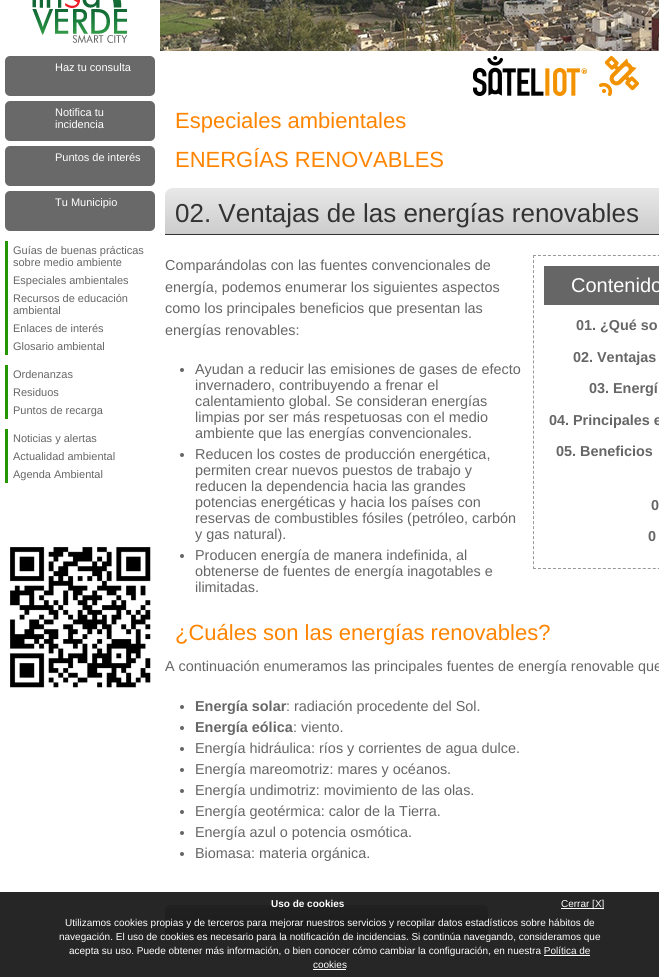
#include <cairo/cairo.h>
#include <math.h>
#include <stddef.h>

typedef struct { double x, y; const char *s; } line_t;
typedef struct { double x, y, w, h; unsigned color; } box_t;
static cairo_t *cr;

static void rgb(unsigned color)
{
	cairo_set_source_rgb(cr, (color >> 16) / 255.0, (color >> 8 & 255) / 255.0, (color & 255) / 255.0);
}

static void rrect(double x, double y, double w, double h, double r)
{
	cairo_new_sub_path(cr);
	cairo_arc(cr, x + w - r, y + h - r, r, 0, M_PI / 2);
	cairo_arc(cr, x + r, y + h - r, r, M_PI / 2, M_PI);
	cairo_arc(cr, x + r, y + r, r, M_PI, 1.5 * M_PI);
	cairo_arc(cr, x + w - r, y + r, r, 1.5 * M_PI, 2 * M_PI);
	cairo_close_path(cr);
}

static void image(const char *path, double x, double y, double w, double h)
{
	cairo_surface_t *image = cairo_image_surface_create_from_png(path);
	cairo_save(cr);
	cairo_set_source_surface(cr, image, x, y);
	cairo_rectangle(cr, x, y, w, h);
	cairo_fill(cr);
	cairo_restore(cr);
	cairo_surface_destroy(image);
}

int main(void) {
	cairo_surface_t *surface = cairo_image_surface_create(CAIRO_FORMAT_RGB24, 659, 977);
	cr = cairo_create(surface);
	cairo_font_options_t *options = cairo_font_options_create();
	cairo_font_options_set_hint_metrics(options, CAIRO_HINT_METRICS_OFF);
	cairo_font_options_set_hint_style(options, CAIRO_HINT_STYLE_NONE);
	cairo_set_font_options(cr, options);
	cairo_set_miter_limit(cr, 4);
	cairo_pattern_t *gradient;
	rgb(0xffffff);
	cairo_paint(cr);
	rgb(0x262626);
	cairo_rectangle(cr, 0, 892, 659, 85);
	cairo_fill(cr);
	image("img/1.png", 32, 0, 96, 43);
	image("img/2.png", 160, 0, 499, 51);
	image("img/3.png", 473, 56, 166, 40);
	rgb(0x696969);
	rrect(5, 56, 150, 40, 5);
	cairo_fill(cr);
	rrect(5, 101, 150, 40, 5);
	cairo_fill(cr);
	rrect(5, 146, 150, 40, 5);
	cairo_fill(cr);
	rrect(5, 191, 150, 40, 5);
	cairo_fill(cr);
	{
		static const box_t items[] = {
			{5, 241, 3, 114, 0x259603},
			{5, 365, 3, 54, 0x259603},
			{5, 429, 3, 54, 0x259603},
		};
		for (size_t i = 0; i < sizeof items / sizeof *items; i++) {
			rgb(items[i].color);
			cairo_rectangle(cr, items[i].x, items[i].y, items[i].w, items[i].h);
			cairo_fill(cr);
		}
	}
	image("img/4.png", 10, 547, 141, 141);
	gradient = cairo_pattern_create_linear(530, 188, 530, 234);
	cairo_pattern_add_color_stop_rgba(gradient, 0, 0.91, 0.91, 0.91, 1);
	cairo_pattern_add_color_stop_rgba(gradient, 1, 0.8, 0.8, 0.8, 1);
	cairo_set_source(cr, gradient);
	cairo_pattern_destroy(gradient);
	cairo_new_path(cr);
	cairo_move_to(cr, 173, 188);
	cairo_line_to(cr, 659, 188);
	cairo_curve_to(cr, 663.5, 188, 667, 191.5, 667, 196);
	cairo_line_to(cr, 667, 234);
	cairo_line_to(cr, 165, 234);
	cairo_line_to(cr, 165, 196);
	cairo_curve_to(cr, 165, 191.5, 168.5, 188, 173, 188);
	cairo_close_path(cr);
	cairo_fill(cr);
	rgb(0x333333);
	cairo_rectangle(cr, 165, 234, 494, 1);
	cairo_fill(cr);
	cairo_new_path(cr);
	cairo_move_to(cr, 533, 255.5);
	cairo_line_to(cr, 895, 255.5);
	rgb(0x999999);
	cairo_set_line_width(cr, 1);
	cairo_set_dash(cr, (double[]){3, 1.99}, 2, 0);
	cairo_stroke(cr);
	cairo_new_path(cr);
	cairo_move_to(cr, 533, 568.5);
	cairo_line_to(cr, 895, 568.5);
	cairo_stroke(cr);
	cairo_new_path(cr);
	cairo_move_to(cr, 533.5, 255);
	cairo_line_to(cr, 533.5, 569);
	cairo_set_dash(cr, (double[]){3, 2.02}, 2, 0);
	cairo_stroke(cr);
	rgb(0x666666);
	cairo_rectangle(cr, 544, 266, 115, 39);
	cairo_fill(cr);
	cairo_arc(cr, 182, 370, 2, 0, 2 * M_PI);
	cairo_fill(cr);
	cairo_arc(cr, 182, 455, 2, 0, 2 * M_PI);
	cairo_fill(cr);
	cairo_arc(cr, 182, 556, 2, 0, 2 * M_PI);
	cairo_fill(cr);
	cairo_arc(cr, 182, 707, 2, 0, 2 * M_PI);
	cairo_fill(cr);
	cairo_arc(cr, 182, 728, 2, 0, 2 * M_PI);
	cairo_fill(cr);
	cairo_arc(cr, 182, 749, 2, 0, 2 * M_PI);
	cairo_fill(cr);
	cairo_arc(cr, 182, 770, 2, 0, 2 * M_PI);
	cairo_fill(cr);
	cairo_arc(cr, 182, 791, 2, 0, 2 * M_PI);
	cairo_fill(cr);
	cairo_arc(cr, 182, 812, 2, 0, 2 * M_PI);
	cairo_fill(cr);
	cairo_arc(cr, 182, 833, 2, 0, 2 * M_PI);
	cairo_fill(cr);
	cairo_arc(cr, 182, 854, 2, 0, 2 * M_PI);
	cairo_fill(cr);
	gradient = cairo_pattern_create_linear(327, 905, 327, 937);
	cairo_pattern_add_color_stop_rgba(gradient, 0, 0.129, 0.129, 0.129, 1);
	cairo_pattern_add_color_stop_rgba(gradient, 1, 0.11, 0.11, 0.11, 1);
	cairo_set_source(cr, gradient);
	cairo_pattern_destroy(gradient);
	rrect(165, 905, 323, 32, 5);
	cairo_fill(cr);
	{
		static const box_t items[] = {
			{561, 908, 43, 1, 0xffffff},
			{544, 955, 46, 1, 0xffffff},
			{313, 969, 33, 1, 0xffffff},
		};
		for (size_t i = 0; i < sizeof items / sizeof *items; i++) {
			rgb(items[i].color);
			cairo_rectangle(cr, items[i].x, items[i].y, items[i].w, items[i].h);
			cairo_fill(cr);
		}
	}
	cairo_select_font_face(cr, "Liberation Sans", CAIRO_FONT_SLANT_NORMAL, CAIRO_FONT_WEIGHT_NORMAL);
	cairo_set_font_size(cr, 11);
	{
		static const line_t items[] = {
			{55, 71, "Haz tu consulta"},
			{55, 116, "Notifica tu"},
			{55, 128, "incidencia"},
			{55, 161, "Puntos de interés"},
			{55, 206, "Tu Municipio"},
		};
		for (size_t i = 0; i < sizeof items / sizeof *items; i++) {
			cairo_move_to(cr, items[i].x, items[i].y);
			cairo_show_text(cr, items[i].s);
		}
	}
	rgb(0x666666);
	{
		static const line_t items[] = {
			{13, 254, "Guías de buenas prácticas"},
			{13, 266, "sobre medio ambiente"},
			{13, 284, "Especiales ambientales"},
			{13, 302, "Recursos de educación"},
			{13, 314, "ambiental"},
			{13, 332, "Enlaces de interés"},
			{13, 350, "Glosario ambiental"},
			{13, 378, "Ordenanzas"},
			{13, 396, "Residuos"},
			{13, 414, "Puntos de recarga"},
			{13, 442, "Noticias y alertas"},
			{13, 460, "Actualidad ambiental"},
			{13, 478, "Agenda Ambiental"},
		};
		for (size_t i = 0; i < sizeof items / sizeof *items; i++) {
			cairo_move_to(cr, items[i].x, items[i].y);
			cairo_show_text(cr, items[i].s);
		}
	}
	cairo_set_font_size(cr, 22);
	rgb(0xff8400);
	cairo_move_to(cr, 175, 128);
	cairo_show_text(cr, "Especiales ambientales");
	cairo_move_to(cr, 175, 167);
	cairo_show_text(cr, "ENERGÍAS RENOVABLES");
	cairo_set_font_size(cr, 26);
	rgb(0x333333);
	cairo_move_to(cr, 175, 222);
	cairo_show_text(cr, "02. Ventajas de las energías renovables");
	cairo_set_font_size(cr, 14.4);
	rgb(0x666666);
	{
		static const line_t items[] = {
			{165, 270, "Comparándolas con las fuentes convencionales de"},
			{165, 292, "energía, podemos enumerar los siguientes aspectos"},
			{165, 313, "como los principales beneficios que presentan las"},
			{165, 335, "energías renovables:"},
		};
		for (size_t i = 0; i < sizeof items / sizeof *items; i++) {
			cairo_move_to(cr, items[i].x, items[i].y);
			cairo_show_text(cr, items[i].s);
		}
	}
	cairo_set_font_size(cr, 20);
	rgb(0xffffff);
	cairo_move_to(cr, 571, 292);
	cairo_show_text(cr, "Contenido");
	cairo_select_font_face(cr, "Liberation Sans", CAIRO_FONT_SLANT_NORMAL, CAIRO_FONT_WEIGHT_BOLD);
	cairo_set_font_size(cr, 14.4);
	rgb(0x666666);
	{
		static const line_t items[] = {
			{576, 330, "01. ¿Qué so"},
			{573, 362, "02. Ventajas"},
			{589, 393, "03. Energí"},
			{549, 425, "04. Principales e"},
			{556, 456, "05. Beneficios"},
			{651, 510, "0"},
			{648, 541, "0"},
		};
		for (size_t i = 0; i < sizeof items / sizeof *items; i++) {
			cairo_move_to(cr, items[i].x, items[i].y);
			cairo_show_text(cr, items[i].s);
		}
	}
	cairo_select_font_face(cr, "Liberation Sans", CAIRO_FONT_SLANT_NORMAL, CAIRO_FONT_WEIGHT_NORMAL);
	{
		static const line_t items[] = {
			{195, 374, "Ayudan a reducir las emisiones de gases de efecto"},
			{195, 390, "invernadero, contribuyendo a frenar el"},
			{195, 406, "calentamiento global. Se consideran energías"},
			{195, 422, "limpias por ser más respetuosas con el medio"},
			{195, 438, "ambiente que las energías convencionales."},
			{195, 459, "Reducen los costes de producción energética,"},
			{195, 475, "permiten crear nuevos puestos de trabajo y"},
			{195, 491, "reducen la dependencia hacia las grandes"},
			{195, 507, "potencias energéticas y hacia los países con"},
			{195, 523, "reservas de combustibles fósiles (petróleo, carbón"},
			{195, 539, "y gas natural)."},
			{195, 560, "Producen energía de manera indefinida, al"},
			{195, 576, "obtenerse de fuentes de energía inagotables e"},
			{195, 592, "ilimitadas."},
		};
		for (size_t i = 0; i < sizeof items / sizeof *items; i++) {
			cairo_move_to(cr, items[i].x, items[i].y);
			cairo_show_text(cr, items[i].s);
		}
	}
	cairo_set_font_size(cr, 22);
	rgb(0xff8400);
	cairo_move_to(cr, 175, 640);
	cairo_show_text(cr, "¿Cuáles son las energías renovables?");
	cairo_set_font_size(cr, 14.4);
	rgb(0x666666);
	cairo_move_to(cr, 165, 671);
	cairo_show_text(cr, "A continuación enumeramos las principales fuentes de energía renovable que");
	cairo_select_font_face(cr, "Liberation Sans", CAIRO_FONT_SLANT_NORMAL, CAIRO_FONT_WEIGHT_BOLD);
	cairo_move_to(cr, 195, 711);
	cairo_show_text(cr, "Energía solar");
	cairo_select_font_face(cr, "Liberation Sans", CAIRO_FONT_SLANT_NORMAL, CAIRO_FONT_WEIGHT_NORMAL);
	cairo_move_to(cr, 286, 711);
	cairo_show_text(cr, ": radiación procedente del Sol.");
	cairo_select_font_face(cr, "Liberation Sans", CAIRO_FONT_SLANT_NORMAL, CAIRO_FONT_WEIGHT_BOLD);
	cairo_move_to(cr, 195, 732);
	cairo_show_text(cr, "Energía eólica");
	cairo_select_font_face(cr, "Liberation Sans", CAIRO_FONT_SLANT_NORMAL, CAIRO_FONT_WEIGHT_NORMAL);
	{
		static const line_t items[] = {
			{293, 732, ": viento."},
			{195, 753, "Energía hidráulica: ríos y corrientes de agua dulce."},
			{195, 774, "Energía mareomotriz: mares y océanos."},
			{195, 795, "Energía undimotriz: movimiento de las olas."},
			{195, 816, "Energía geotérmica: calor de la Tierra."},
			{195, 837, "Energía azul o potencia osmótica."},
			{195, 858, "Biomasa: materia orgánica."},
		};
		for (size_t i = 0; i < sizeof items / sizeof *items; i++) {
			cairo_move_to(cr, items[i].x, items[i].y);
			cairo_show_text(cr, items[i].s);
		}
	}
	cairo_select_font_face(cr, "Liberation Sans", CAIRO_FONT_SLANT_NORMAL, CAIRO_FONT_WEIGHT_BOLD);
	cairo_set_font_size(cr, 10);
	rgb(0xffffff);
	cairo_move_to(cr, 271, 907);
	cairo_show_text(cr, "Uso de cookies");
	cairo_select_font_face(cr, "Liberation Sans", CAIRO_FONT_SLANT_NORMAL, CAIRO_FONT_WEIGHT_NORMAL);
	{
		static const line_t items[] = {
			{561, 907, "Cerrar [X]"},
			{65, 926, "Utilizamos cookies propias y de terceros para mejorar nuestros servicios y recopilar datos estadísticos sobre hábitos de"},
			{59, 940, "navegación. El uso de cookies es necesario para la notificación de incidencias. Si continúa navegando, consideramos que"},
			{69, 954, "acepta su uso. Puede obtener más información, o bien conocer cómo cambiar la configuración, en nuestra Política de"},
			{313, 968, "cookies"},
		};
		for (size_t i = 0; i < sizeof items / sizeof *items; i++) {
			cairo_move_to(cr, items[i].x, items[i].y);
			cairo_show_text(cr, items[i].s);
		}
	}
	cairo_surface_write_to_png(surface, "page.png");
	cairo_font_options_destroy(options);
	cairo_destroy(cr);
	cairo_surface_destroy(surface);
	return 0;
}
